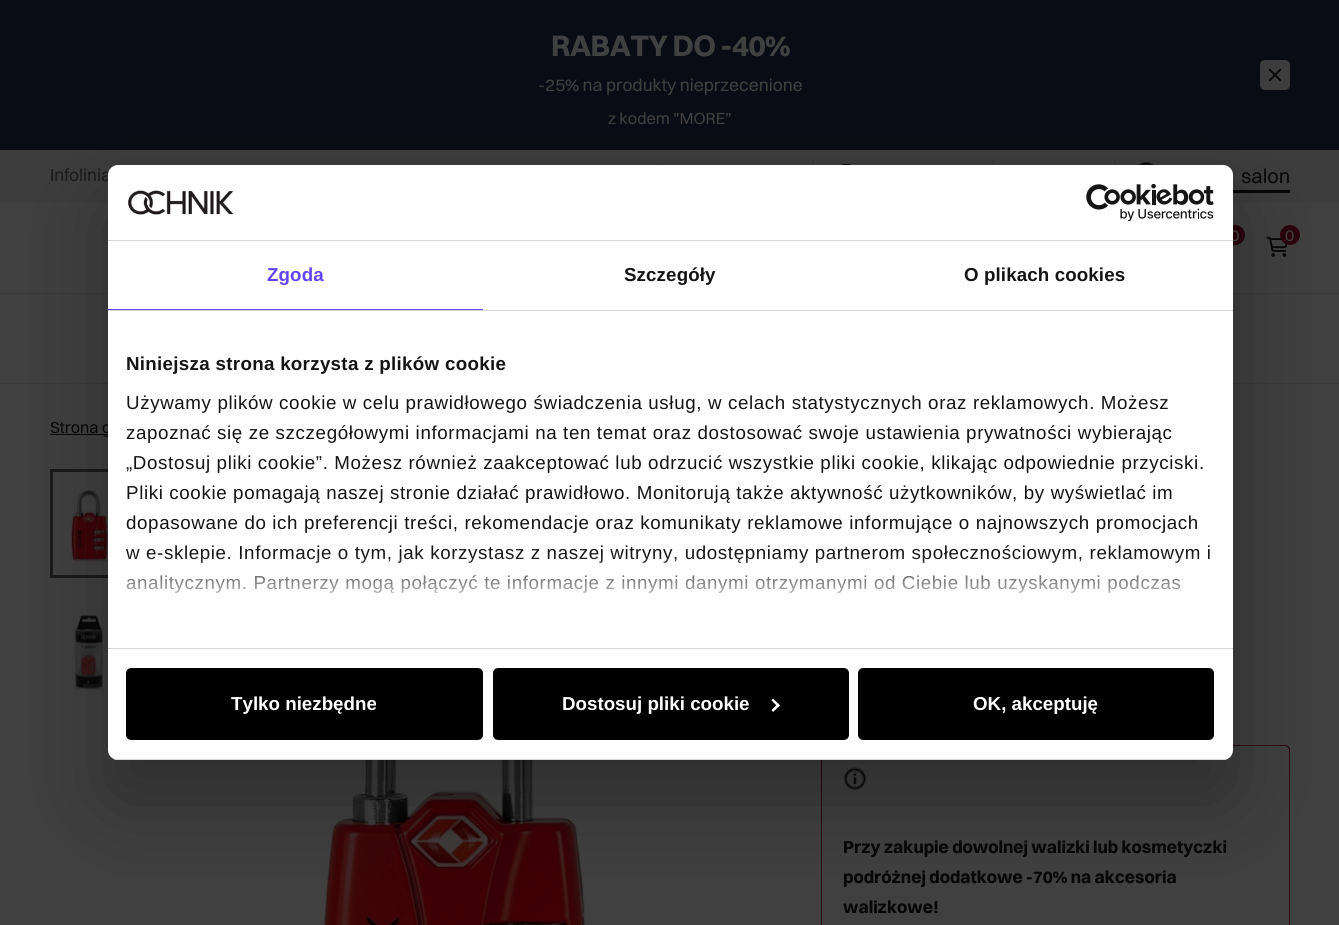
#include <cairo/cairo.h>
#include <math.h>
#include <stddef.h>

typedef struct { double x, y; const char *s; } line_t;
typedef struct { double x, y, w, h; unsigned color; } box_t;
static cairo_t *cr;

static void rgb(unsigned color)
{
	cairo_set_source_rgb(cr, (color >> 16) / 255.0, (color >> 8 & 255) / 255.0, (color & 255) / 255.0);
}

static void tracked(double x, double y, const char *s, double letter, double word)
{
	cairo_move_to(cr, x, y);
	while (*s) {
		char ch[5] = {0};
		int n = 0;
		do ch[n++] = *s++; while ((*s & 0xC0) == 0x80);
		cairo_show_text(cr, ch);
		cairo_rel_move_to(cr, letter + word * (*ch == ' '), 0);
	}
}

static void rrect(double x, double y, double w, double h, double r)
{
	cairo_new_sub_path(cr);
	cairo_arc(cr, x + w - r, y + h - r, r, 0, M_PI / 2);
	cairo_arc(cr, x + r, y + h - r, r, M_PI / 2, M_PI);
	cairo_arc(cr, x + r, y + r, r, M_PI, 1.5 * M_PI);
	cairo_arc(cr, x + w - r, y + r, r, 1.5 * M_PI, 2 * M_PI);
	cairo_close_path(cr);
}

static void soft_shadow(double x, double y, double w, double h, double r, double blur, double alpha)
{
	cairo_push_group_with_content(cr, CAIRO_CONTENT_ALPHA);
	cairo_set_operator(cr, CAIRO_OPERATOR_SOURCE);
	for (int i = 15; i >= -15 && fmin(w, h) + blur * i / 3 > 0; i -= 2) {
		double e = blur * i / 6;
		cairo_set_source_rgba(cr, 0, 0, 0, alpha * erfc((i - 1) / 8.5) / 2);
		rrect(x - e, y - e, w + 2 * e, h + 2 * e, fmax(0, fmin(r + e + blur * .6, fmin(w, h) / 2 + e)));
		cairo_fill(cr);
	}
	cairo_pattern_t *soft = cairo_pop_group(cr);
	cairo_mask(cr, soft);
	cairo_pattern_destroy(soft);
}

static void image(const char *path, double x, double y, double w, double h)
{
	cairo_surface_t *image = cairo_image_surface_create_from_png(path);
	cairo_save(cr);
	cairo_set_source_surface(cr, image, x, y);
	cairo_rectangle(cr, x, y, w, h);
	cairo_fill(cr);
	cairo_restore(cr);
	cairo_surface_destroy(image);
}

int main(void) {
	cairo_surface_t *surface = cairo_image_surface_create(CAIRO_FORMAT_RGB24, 1339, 925);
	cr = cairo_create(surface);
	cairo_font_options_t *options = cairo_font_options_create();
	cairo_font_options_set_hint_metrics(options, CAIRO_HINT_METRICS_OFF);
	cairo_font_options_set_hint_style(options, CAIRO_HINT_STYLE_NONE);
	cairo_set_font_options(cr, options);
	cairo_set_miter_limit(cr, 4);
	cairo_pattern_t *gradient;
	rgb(0x404040);
	cairo_paint(cr);
	rgb(0x0a0c15);
	cairo_rectangle(cr, 0, 0, 1339, 150);
	cairo_fill(cr);
	rgb(0x3d3d3d);
	rrect(1260, 60, 30, 30, 5);
	cairo_fill(cr);
	image("img/1.png", 1268, 68, 14, 14);
	cairo_rectangle(cr, 0, 150, 1339, 53);
	cairo_fill(cr);
	image("img/2.png", 656, 164, 6, 1);
	rgb(0x363636);
	cairo_rectangle(cr, 813, 160, 1, 5);
	cairo_fill(cr);
	image("img/3.png", 841, 164, 11, 1);
	cairo_rectangle(cr, 993, 160, 1, 5);
	cairo_fill(cr);
	cairo_rectangle(cr, 1114, 160, 1, 5);
	cairo_fill(cr);
	image("img/4.png", 1137, 162, 18, 3);
	rgb(0x070707);
	cairo_rectangle(cr, 1233, 190, 57, 3);
	cairo_fill(cr);
	image("img/5.png", 1233, 244, 1, 3);
	rgb(0x29010d);
	cairo_arc(cr, 1235, 235, 10, 0, 2 * M_PI);
	cairo_fill(cr);
	image("img/6.png", 1266, 236, 22, 21);
	cairo_arc(cr, 1290, 235, 10, 0, 2 * M_PI);
	cairo_fill(cr);
	{
		static const box_t items[] = {
			{0, 293, 1339, 1, 0x3a3a3a},
			{0, 383, 1339, 1, 0x3a3a3a},
			{50, 434, 58, 1, 0x070707},
		};
		for (size_t i = 0; i < sizeof items / sizeof *items; i++) {
			rgb(items[i].color);
			cairo_rectangle(cr, items[i].x, items[i].y, items[i].w, items[i].h);
			cairo_fill(cr);
		}
	}
	image("img/7.png", 70, 489, 38, 74);
	cairo_rectangle(cr, 51.5, 470.5, 75, 106);
	rgb(0x1a1a1a);
	cairo_set_line_width(cr, 3);
	cairo_stroke(cr);
	image("img/8.png", 74, 614, 29, 78);
	image("img/9.png", 323, 760, 263, 165);
	rrect(821.5, 745.5, 468, 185, 4.5);
	rgb(0x29010d);
	cairo_set_line_width(cr, 1);
	cairo_stroke(cr);
	image("img/10.png", 843, 767, 24, 24);
	rgb(0x000000);
	soft_shadow(108, 205, 1125, 595, 10, 42.5, 0.3);
	cairo_select_font_face(cr, "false", CAIRO_FONT_SLANT_NORMAL, CAIRO_FONT_WEIGHT_BOLD);
	cairo_set_font_size(cr, 30);
	rgb(0x404040);
	tracked(551, 56, "RABATY DO -40%", -0.5, 0);
	cairo_select_font_face(cr, "false", CAIRO_FONT_SLANT_NORMAL, CAIRO_FONT_WEIGHT_NORMAL);
	cairo_set_font_size(cr, 17.5);
	cairo_move_to(cr, 538, 91);
	cairo_show_text(cr, "-25% na produkty nieprzecenione");
	cairo_set_font_size(cr, 16.25);
	cairo_move_to(cr, 608, 124);
	cairo_show_text(cr, "z kodem \"MORE\"");
	cairo_set_font_size(cr, 17.5);
	rgb(0x1a1a1a);
	cairo_move_to(cr, 50, 181);
	cairo_show_text(cr, "Infolinia");
	cairo_set_font_size(cr, 20);
	rgb(0x070707);
	cairo_move_to(cr, 1241, 183);
	cairo_show_text(cr, "salon");
	cairo_set_font_size(cr, 16.25);
	rgb(0x404040);
	cairo_move_to(cr, 1230, 241);
	cairo_show_text(cr, "0");
	cairo_move_to(cr, 1285, 241);
	cairo_show_text(cr, "0");
	rgb(0x070707);
	cairo_move_to(cr, 50, 433);
	cairo_show_text(cr, "Strona g");
	cairo_select_font_face(cr, "false", CAIRO_FONT_SLANT_NORMAL, CAIRO_FONT_WEIGHT_BOLD);
	cairo_set_font_size(cr, 17.5);
	{
		static const line_t items[] = {
			{843, 853, "Przy zakupie dowolnej walizki lub kosmetyczki"},
			{843, 883, "podróżnej dodatkowe -70% na akcesoria"},
			{843, 913, "walizkowe!"},
		};
		for (size_t i = 0; i < sizeof items / sizeof *items; i++) {
			cairo_move_to(cr, items[i].x, items[i].y);
			cairo_show_text(cr, items[i].s);
		}
	}
	rgb(0xffffff);
	rrect(108, 165, 1125, 595, 10);
	cairo_fill(cr);
	rgb(0xd6d6d6);
	cairo_rectangle(cr, 108, 240, 1125, 1);
	cairo_fill(cr);
	image("img/11.png", 127, 190, 107, 25);
	image("img/12.png", 1086, 184, 128, 37);
	cairo_rectangle(cr, 108, 310, 1125, 1);
	cairo_fill(cr);
	rgb(0x6345f9);
	cairo_rectangle(cr, 108, 309, 375, 1);
	cairo_fill(cr);
	cairo_select_font_face(cr, "Liberation Sans", CAIRO_FONT_SLANT_NORMAL, CAIRO_FONT_WEIGHT_BOLD);
	cairo_set_font_size(cr, 18.75);
	tracked(267, 281, "Zgoda", 0.1, 0);
	rgb(0x141414);
	tracked(624, 281, "Szczegóły", 0.1, 0);
	tracked(964, 281, "O plikach cookies", 0.1, 0);
	rgb(0xd6d6d6);
	cairo_rectangle(cr, 108, 648, 1125, 1);
	cairo_fill(cr);
	rgb(0x141414);
	tracked(126, 370, "Niniejsza strona korzysta z plików cookie", 0.3, 0);
	cairo_select_font_face(cr, "Liberation Sans", CAIRO_FONT_SLANT_NORMAL, CAIRO_FONT_WEIGHT_NORMAL);
	{
		static const line_t items[] = {
			{126, 409, "Używamy plików cookie w celu prawidłowego świadczenia usług, w celach statystycznych oraz reklamowych. Możesz"},
			{126, 439, "zapoznać się ze szczegółowymi informacjami na ten temat oraz dostosować swoje ustawienia prywatności wybierając"},
			{126, 469, "„Dostosuj pliki cookie”. Możesz również zaakceptować lub odrzucić wszystkie pliki cookie, klikając odpowiednie przyciski."},
			{126, 499, "Pliki cookie pomagają naszej stronie działać prawidłowo. Monitorują także aktywność użytkowników, by wyświetlać im"},
			{126, 529, "dopasowane do ich preferencji treści, rekomendacje oraz komunikaty reklamowe informujące o najnowszych promocjach"},
			{126, 559, "w e-sklepie. Informacje o tym, jak korzystasz z naszej witryny, udostępniamy partnerom społecznościowym, reklamowym i"},
			{126, 589, "analitycznym. Partnerzy mogą połączyć te informacje z innymi danymi otrzymanymi od Ciebie lub uzyskanymi podczas"},
		};
		for (size_t i = 0; i < sizeof items / sizeof *items; i++) {
			tracked(items[i].x, items[i].y, items[i].s, 0.62, 0);
		}
	}
	gradient = cairo_pattern_create_linear(662, 648, 662, 554);
	cairo_pattern_add_color_stop_rgba(gradient, 0, 1, 1, 1, 1);
	cairo_pattern_add_color_stop_rgba(gradient, 0.5, 1, 1, 1, 0.8);
	cairo_pattern_add_color_stop_rgba(gradient, 1, 1, 1, 1, 0);
	cairo_set_source(cr, gradient);
	cairo_pattern_destroy(gradient);
	cairo_rectangle(cr, 127, 555, 1084, 38);
	cairo_fill(cr);
	cairo_save(cr);
	rrect(108, 165, 1125, 595, 10);
	cairo_clip(cr);
	rgb(0xd6d6d6);
	cairo_rectangle(cr, 108, 759, 1125, 1);
	cairo_fill(cr);
	cairo_restore(cr);
	rgb(0x000000);
	rrect(127.5, 669.5, 354, 69, 3.5);
	cairo_fill_preserve(cr);
	cairo_set_line_width(cr, 3);
	cairo_stroke(cr);
	cairo_select_font_face(cr, "Liberation Sans", CAIRO_FONT_SLANT_NORMAL, CAIRO_FONT_WEIGHT_BOLD);
	rgb(0xffffff);
	cairo_move_to(cr, 231, 710);
	cairo_show_text(cr, "Tylko niezbędne");
	rgb(0x000000);
	rrect(494.5, 669.5, 353, 69, 3.5);
	cairo_fill_preserve(cr);
	cairo_stroke(cr);
	rgb(0xffffff);
	cairo_move_to(cr, 562, 710);
	cairo_show_text(cr, "Dostosuj pliki cookie");
	cairo_new_path(cr);
	cairo_move_to(cr, 773, 698.5);
	cairo_line_to(cr, 780, 705.5);
	cairo_line_to(cr, 778, 707);
	cairo_line_to(cr, 771.5, 700.5);
	cairo_close_path(cr);
	cairo_fill(cr);
	cairo_new_path(cr);
	cairo_move_to(cr, 778, 703.5);
	cairo_line_to(cr, 780, 705.5);
	cairo_line_to(cr, 773, 712);
	cairo_line_to(cr, 771.5, 710);
	cairo_close_path(cr);
	cairo_fill(cr);
	rgb(0x000000);
	rrect(859.5, 669.5, 353, 69, 3.5);
	cairo_fill_preserve(cr);
	cairo_stroke(cr);
	rgb(0xffffff);
	cairo_move_to(cr, 973, 710);
	cairo_show_text(cr, "OK, akceptuję");
	cairo_surface_write_to_png(surface, "page.png");
	cairo_font_options_destroy(options);
	cairo_destroy(cr);
	cairo_surface_destroy(surface);
	return 0;
}
